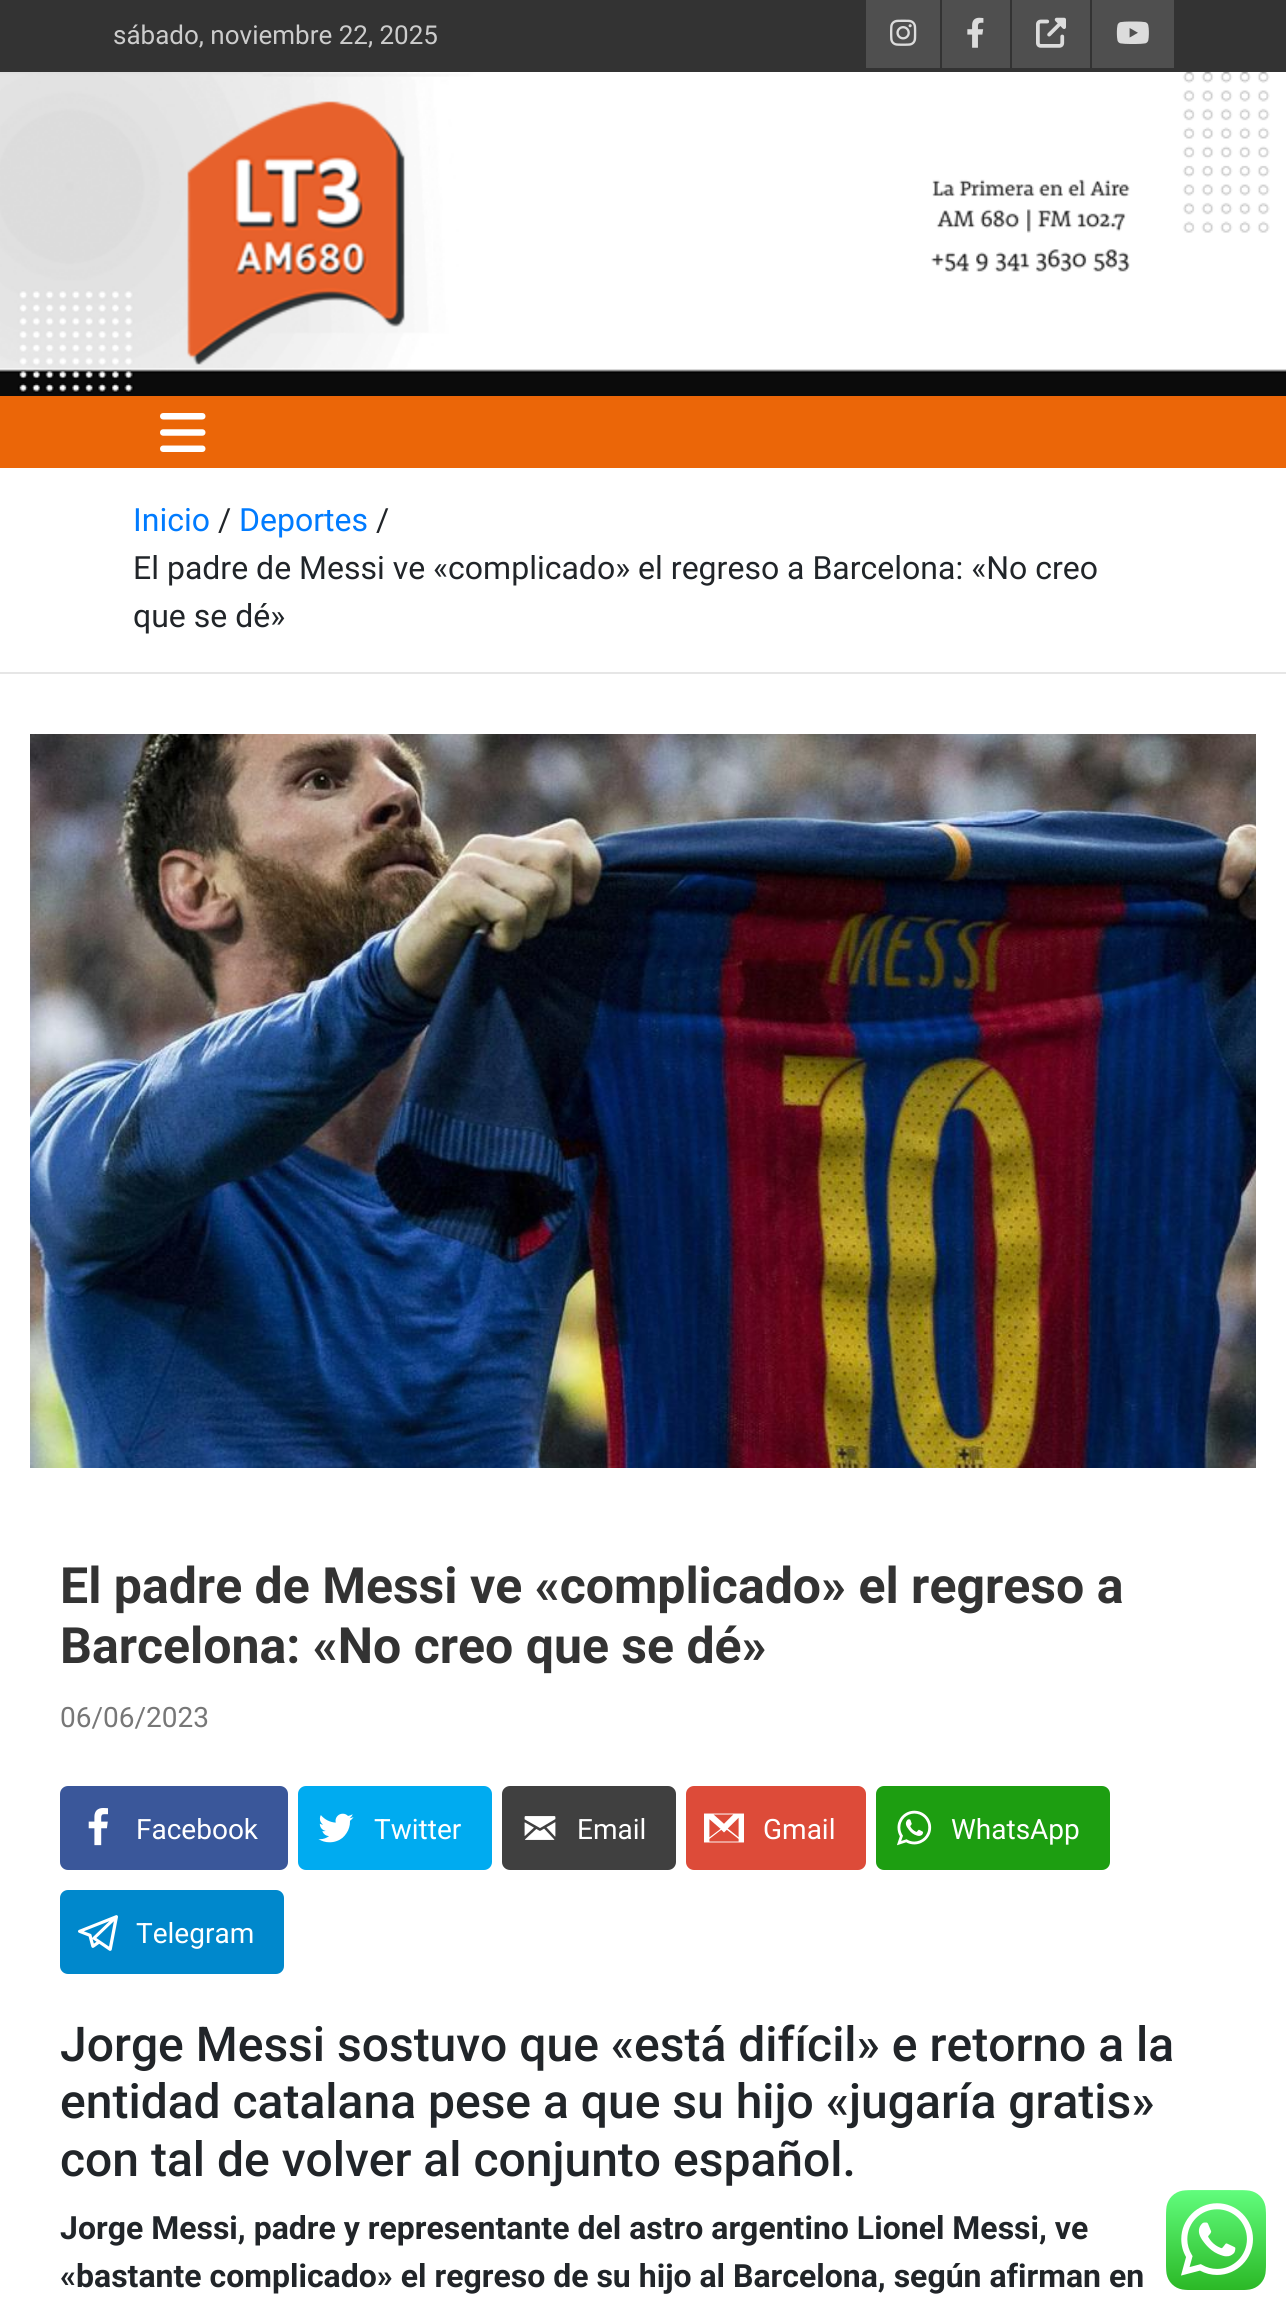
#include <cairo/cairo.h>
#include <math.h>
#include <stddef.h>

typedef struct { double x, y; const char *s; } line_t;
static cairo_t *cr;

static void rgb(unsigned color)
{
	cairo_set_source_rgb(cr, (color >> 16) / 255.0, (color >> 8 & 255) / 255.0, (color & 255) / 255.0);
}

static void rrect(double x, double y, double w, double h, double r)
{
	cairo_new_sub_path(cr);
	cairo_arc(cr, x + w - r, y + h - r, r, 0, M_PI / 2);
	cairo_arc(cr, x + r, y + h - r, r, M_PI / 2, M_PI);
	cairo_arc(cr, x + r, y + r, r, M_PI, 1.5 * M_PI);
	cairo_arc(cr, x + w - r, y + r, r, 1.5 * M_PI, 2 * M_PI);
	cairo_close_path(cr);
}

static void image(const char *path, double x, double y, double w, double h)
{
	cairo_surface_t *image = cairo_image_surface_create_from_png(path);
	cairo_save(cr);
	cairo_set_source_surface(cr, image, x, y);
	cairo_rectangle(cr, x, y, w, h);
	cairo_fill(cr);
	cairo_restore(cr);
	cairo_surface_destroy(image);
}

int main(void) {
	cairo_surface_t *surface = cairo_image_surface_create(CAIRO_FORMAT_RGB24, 1286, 2309);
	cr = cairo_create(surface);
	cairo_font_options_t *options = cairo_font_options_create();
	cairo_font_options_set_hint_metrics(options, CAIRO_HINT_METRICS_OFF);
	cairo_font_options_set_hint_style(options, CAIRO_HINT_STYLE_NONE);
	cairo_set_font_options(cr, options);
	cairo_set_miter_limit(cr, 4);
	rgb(0xffffff);
	cairo_paint(cr);
	rgb(0x333333);
	cairo_rectangle(cr, 0, 0, 1286, 72);
	cairo_fill(cr);
	rgb(0x4f4f4f);
	cairo_rectangle(cr, 866, 0, 74, 68);
	cairo_fill(cr);
	image("img/1.png", 890, 19, 27, 27);
	cairo_rectangle(cr, 942, 0, 68, 68);
	cairo_fill(cr);
	image("img/2.png", 967, 17, 17, 31);
	cairo_rectangle(cr, 1012, 0, 78, 68);
	cairo_fill(cr);
	image("img/3.png", 1036, 17, 30, 31);
	cairo_rectangle(cr, 1092, 0, 82, 68);
	cairo_fill(cr);
	image("img/4.png", 1116, 21, 33, 23);
	image("img/5.png", 0, 72, 1286, 324);
	image("img/6.png", 187, 101, 218, 264);
	rgb(0xeb6608);
	cairo_rectangle(cr, 0, 396, 1286, 72);
	cairo_fill(cr);
	image("img/7.png", 160, 413, 46, 39);
	rgb(0xe6e6e6);
	cairo_rectangle(cr, 0, 672, 1286, 2);
	cairo_fill(cr);
	image("img/8.png", 30, 734, 1226, 734);
	rgb(0x3a579a);
	rrect(60, 1786, 228, 84, 8);
	cairo_fill(cr);
	image("img/9.png", 88, 1808, 20, 38);
	rgb(0x00abf0);
	rrect(298, 1786, 194, 84, 8);
	cairo_fill(cr);
	image("img/10.png", 318, 1813, 36, 30);
	rgb(0x404040);
	rrect(502, 1786, 174, 84, 8);
	cairo_fill(cr);
	image("img/11.png", 524, 1816, 32, 24);
	rgb(0xdd4b39);
	rrect(686, 1786, 180, 84, 8);
	cairo_fill(cr);
	image("img/12.png", 704, 1813, 40, 30);
	rgb(0x1d9e11);
	rrect(876, 1786, 234, 84, 8);
	cairo_fill(cr);
	image("img/13.png", 897, 1810, 35, 36);
	rgb(0x0088cc);
	rrect(60, 1890, 224, 84, 8);
	cairo_fill(cr);
	image("img/14.png", 1166, 2190, 100, 100);
	cairo_select_font_face(cr, "Roboto", CAIRO_FONT_SLANT_NORMAL, CAIRO_FONT_WEIGHT_NORMAL);
	cairo_set_font_size(cr, 26);
	rgb(0xcccccc);
	cairo_move_to(cr, 113, 44);
	cairo_show_text(cr, "sábado, noviembre 22, 2025");
	cairo_set_font_size(cr, 32);
	rgb(0x007bff);
	cairo_move_to(cr, 133, 531);
	cairo_show_text(cr, "Inicio");
	rgb(0x212529);
	cairo_move_to(cr, 218, 531);
	cairo_show_text(cr, "/");
	rgb(0x007bff);
	cairo_move_to(cr, 239, 531);
	cairo_show_text(cr, "Deportes");
	rgb(0x212529);
	{
		static const line_t items[] = {
			{376, 531, "/"},
			{133, 579, "El padre de Messi ve «complicado» el regreso a Barcelona: «No creo"},
			{133, 627, "que se dé»"},
		};
		for (size_t i = 0; i < sizeof items / sizeof *items; i++) {
			cairo_move_to(cr, items[i].x, items[i].y);
			cairo_show_text(cr, items[i].s);
		}
	}
	cairo_select_font_face(cr, "Roboto", CAIRO_FONT_SLANT_NORMAL, CAIRO_FONT_WEIGHT_BOLD);
	cairo_set_font_size(cr, 50);
	rgb(0x333333);
	cairo_move_to(cr, 60, 1603);
	cairo_show_text(cr, "El padre de Messi ve «complicado» el regreso a");
	cairo_move_to(cr, 60, 1663);
	cairo_show_text(cr, "Barcelona: «No creo que se dé»");
	cairo_select_font_face(cr, "Roboto", CAIRO_FONT_SLANT_NORMAL, CAIRO_FONT_WEIGHT_NORMAL);
	cairo_set_font_size(cr, 28);
	rgb(0x777777);
	cairo_move_to(cr, 60, 1727);
	cairo_show_text(cr, "06/06/2023");
	rgb(0xffffff);
	{
		static const line_t items[] = {
			{136, 1839, "Facebook"},
			{374, 1839, "Twitter"},
			{577, 1839, "Email"},
			{763, 1839, "Gmail"},
			{951, 1839, "WhatsApp"},
		};
		for (size_t i = 0; i < sizeof items / sizeof *items; i++) {
			cairo_move_to(cr, items[i].x, items[i].y);
			cairo_show_text(cr, items[i].s);
		}
	}
	cairo_select_font_face(cr, "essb", CAIRO_FONT_SLANT_NORMAL, CAIRO_FONT_WEIGHT_NORMAL);
	cairo_set_font_size(cr, 40);
	cairo_move_to(cr, 78, 1953);
	cairo_show_text(cr, "\"");
	cairo_select_font_face(cr, "Roboto", CAIRO_FONT_SLANT_NORMAL, CAIRO_FONT_WEIGHT_NORMAL);
	cairo_set_font_size(cr, 28);
	cairo_move_to(cr, 136, 1943);
	cairo_show_text(cr, "Telegram");
	cairo_select_font_face(cr, "Roboto Medium", CAIRO_FONT_SLANT_NORMAL, CAIRO_FONT_WEIGHT_NORMAL);
	cairo_set_font_size(cr, 48);
	rgb(0x212529);
	{
		static const line_t items[] = {
			{60, 2061, "Jorge Messi sostuvo que «está difícil» e retorno a la"},
			{60, 2118, "entidad catalana pese a que su hijo «jugaría gratis»"},
			{60, 2176, "con tal de volver al conjunto español."},
		};
		for (size_t i = 0; i < sizeof items / sizeof *items; i++) {
			cairo_move_to(cr, items[i].x, items[i].y);
			cairo_show_text(cr, items[i].s);
		}
	}
	cairo_select_font_face(cr, "Roboto", CAIRO_FONT_SLANT_NORMAL, CAIRO_FONT_WEIGHT_BOLD);
	cairo_set_font_size(cr, 32);
	cairo_move_to(cr, 60, 2239);
	cairo_show_text(cr, "Jorge Messi, padre y representante del astro argentino Lionel Messi, ve");
	cairo_move_to(cr, 60, 2287);
	cairo_show_text(cr, "«bastante complicado» el regreso de su hijo al Barcelona, según afirman en");
	cairo_surface_write_to_png(surface, "page.png");
	cairo_font_options_destroy(options);
	cairo_destroy(cr);
	cairo_surface_destroy(surface);
	return 0;
}
